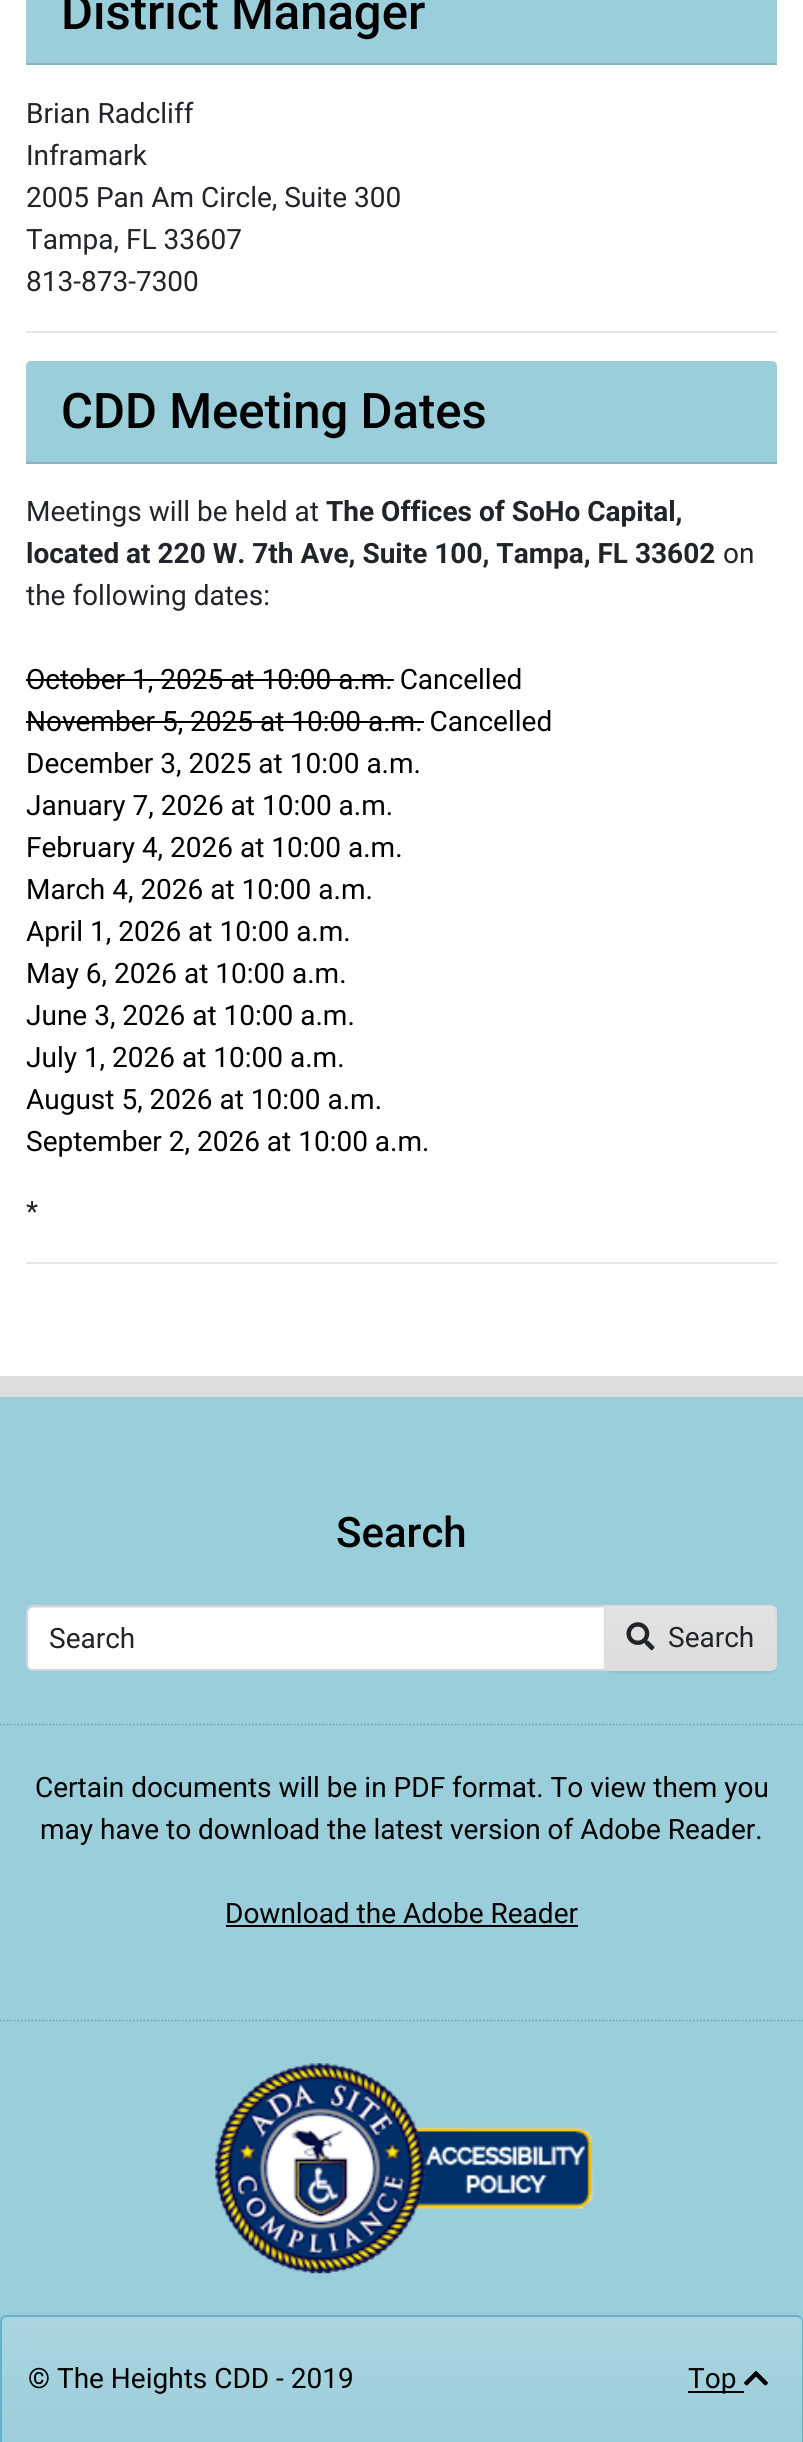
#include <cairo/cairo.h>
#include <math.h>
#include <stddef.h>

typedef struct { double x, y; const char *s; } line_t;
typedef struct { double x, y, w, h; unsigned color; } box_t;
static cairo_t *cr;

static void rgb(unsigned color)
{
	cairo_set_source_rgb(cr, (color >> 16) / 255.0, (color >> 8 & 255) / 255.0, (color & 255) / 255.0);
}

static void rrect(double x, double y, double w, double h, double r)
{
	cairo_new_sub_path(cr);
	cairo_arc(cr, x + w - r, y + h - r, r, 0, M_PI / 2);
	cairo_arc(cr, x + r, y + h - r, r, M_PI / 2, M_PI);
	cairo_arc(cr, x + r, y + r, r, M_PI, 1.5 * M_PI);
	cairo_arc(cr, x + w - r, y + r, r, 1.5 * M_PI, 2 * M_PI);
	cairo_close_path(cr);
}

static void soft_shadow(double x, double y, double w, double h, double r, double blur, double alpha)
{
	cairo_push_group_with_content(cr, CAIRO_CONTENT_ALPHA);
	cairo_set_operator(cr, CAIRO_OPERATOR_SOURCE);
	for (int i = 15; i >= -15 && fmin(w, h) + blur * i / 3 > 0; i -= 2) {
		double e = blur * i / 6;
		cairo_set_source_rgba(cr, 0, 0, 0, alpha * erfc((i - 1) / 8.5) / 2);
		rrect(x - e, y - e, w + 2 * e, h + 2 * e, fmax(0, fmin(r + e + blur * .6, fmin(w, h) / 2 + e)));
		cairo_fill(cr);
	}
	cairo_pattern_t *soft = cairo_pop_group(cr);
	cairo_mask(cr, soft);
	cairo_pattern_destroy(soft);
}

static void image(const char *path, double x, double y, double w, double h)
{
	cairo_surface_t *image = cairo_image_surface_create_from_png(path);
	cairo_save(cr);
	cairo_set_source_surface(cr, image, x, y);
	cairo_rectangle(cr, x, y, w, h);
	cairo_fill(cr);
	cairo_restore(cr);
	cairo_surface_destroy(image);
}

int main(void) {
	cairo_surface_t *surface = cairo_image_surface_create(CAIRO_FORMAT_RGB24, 803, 2442);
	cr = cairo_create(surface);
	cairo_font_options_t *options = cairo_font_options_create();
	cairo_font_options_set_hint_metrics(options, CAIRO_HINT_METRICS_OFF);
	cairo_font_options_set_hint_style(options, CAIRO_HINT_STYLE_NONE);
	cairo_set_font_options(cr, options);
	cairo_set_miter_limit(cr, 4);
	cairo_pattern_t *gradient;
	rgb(0xffffff);
	cairo_paint(cr);
	{
		static const box_t items[] = {
			{26, 0, 751, 63, 0x9bcedb},
			{26, 63, 751, 2, 0x88b4c0},
			{26, 331, 751, 2, 0xe6e6e6},
		};
		for (size_t i = 0; i < sizeof items / sizeof *items; i++) {
			rgb(items[i].color);
			cairo_rectangle(cr, items[i].x, items[i].y, items[i].w, items[i].h);
			cairo_fill(cr);
		}
	}
	rgb(0x9bcedb);
	cairo_new_path(cr);
	cairo_move_to(cr, 31, 361);
	cairo_line_to(cr, 772, 361);
	cairo_curve_to(cr, 775, 361, 777, 363, 777, 366);
	cairo_line_to(cr, 777, 464);
	cairo_line_to(cr, 26, 464);
	cairo_line_to(cr, 26, 366);
	cairo_curve_to(cr, 26, 363, 28, 361, 31, 361);
	cairo_close_path(cr);
	cairo_fill(cr);
	{
		static const box_t items[] = {
			{26, 462, 751, 2, 0x88b4c0},
			{26, 679, 368, 2, 0x000000},
			{26, 721, 398, 2, 0x000000},
			{26, 1262, 751, 2, 0xe6e6e6},
			{0, 1397, 803, 925, 0x9bcedb},
			{0, 1376, 803, 21, 0xdddddd},
		};
		for (size_t i = 0; i < sizeof items / sizeof *items; i++) {
			rgb(items[i].color);
			cairo_rectangle(cr, items[i].x, items[i].y, items[i].w, items[i].h);
			cairo_fill(cr);
		}
	}
	rgb(0xffffff);
	cairo_new_path(cr);
	cairo_move_to(cr, 33, 1607);
	cairo_line_to(cr, 604, 1607);
	cairo_line_to(cr, 604, 1670);
	cairo_line_to(cr, 33, 1670);
	cairo_curve_to(cr, 30, 1670, 28, 1668, 28, 1665);
	cairo_line_to(cr, 28, 1612);
	cairo_curve_to(cr, 28, 1609, 30, 1607, 33, 1607);
	cairo_close_path(cr);
	cairo_fill(cr);
	cairo_set_source_rgba(cr, 0, 0, 0, 0.07);
	cairo_new_path(cr);
	cairo_move_to(cr, 33, 1608);
	cairo_line_to(cr, 604, 1608);
	cairo_line_to(cr, 604, 1607);
	cairo_line_to(cr, 33, 1607);
	cairo_curve_to(cr, 29, 1607, 28, 1611, 28, 1614);
	cairo_curve_to(cr, 28, 1611, 30, 1608, 33, 1608);
	cairo_close_path(cr);
	cairo_fill(cr);
	cairo_new_path(cr);
	cairo_move_to(cr, 33, 1606);
	cairo_line_to(cr, 605, 1606);
	cairo_line_to(cr, 605, 1670);
	cairo_line_to(cr, 33, 1670);
	cairo_curve_to(cr, 29.5, 1670, 27, 1667.5, 27, 1664);
	cairo_line_to(cr, 27, 1612);
	cairo_curve_to(cr, 27, 1608.5, 29.5, 1606, 33, 1606);
	cairo_close_path(cr);
	rgb(0xced4da);
	cairo_stroke(cr);
	rgb(0x000000);
	soft_shadow(604, 1607, 173, 66, 7, 1, 0.07);
	cairo_save(cr);
	cairo_new_path(cr);
	cairo_move_to(cr, 604, 1605);
	cairo_line_to(cr, 770, 1605);
	cairo_curve_to(cr, 774, 1605, 777, 1608, 777, 1612);
	cairo_line_to(cr, 777, 1664);
	cairo_curve_to(cr, 777, 1668, 774, 1671, 770, 1671);
	cairo_line_to(cr, 604, 1671);
	cairo_close_path(cr);
	cairo_clip(cr);
	gradient = cairo_pattern_create_linear(690, 1607, 690, 1670);
	cairo_pattern_add_color_stop_rgba(gradient, 0, 0.886, 0.886, 0.886, 1);
	cairo_pattern_add_color_stop_rgba(gradient, 1, 0.867, 0.867, 0.867, 1);
	cairo_set_source(cr, gradient);
	cairo_pattern_destroy(gradient);
	cairo_rectangle(cr, 606, 1607, 171, 63);
	cairo_fill(cr);
	cairo_restore(cr);
	rgb(0xe6e6e6);
	cairo_new_path(cr);
	cairo_move_to(cr, 606, 1608);
	cairo_line_to(cr, 770, 1608);
	cairo_curve_to(cr, 773, 1608, 775, 1611, 775, 1614);
	cairo_line_to(cr, 775, 1612);
	cairo_curve_to(cr, 775, 1609, 773, 1607, 770, 1607);
	cairo_line_to(cr, 606, 1607);
	cairo_close_path(cr);
	cairo_fill(cr);
	cairo_new_path(cr);
	cairo_move_to(cr, 605, 1606);
	cairo_line_to(cr, 770, 1606);
	cairo_curve_to(cr, 773.5, 1606, 776, 1608.5, 776, 1612);
	cairo_line_to(cr, 776, 1664);
	cairo_curve_to(cr, 776, 1667.5, 773.5, 1670, 770, 1670);
	cairo_line_to(cr, 605, 1670);
	cairo_close_path(cr);
	rgb(0xdddddd);
	cairo_stroke(cr);
	image("img/1.png", 626, 1622, 29, 29);
	cairo_new_path(cr);
	cairo_move_to(cr, 0, 1724.5);
	cairo_line_to(cr, 803, 1724.5);
	rgb(0x63b2c7);
	cairo_set_line_width(cr, 1.8);
	cairo_set_dash(cr, (double[]){1.75, 1.75}, 2, 0);
	cairo_stroke(cr);
	rgb(0x000000);
	cairo_rectangle(cr, 226, 1925, 352, 2);
	cairo_fill(cr);
	cairo_new_path(cr);
	cairo_move_to(cr, 0, 2020.5);
	cairo_line_to(cr, 803, 2020.5);
	rgb(0x63b2c7);
	cairo_stroke(cr);
	image("img/2.png", 214, 2063, 380, 211);
	cairo_save(cr);
	cairo_new_path(cr);
	cairo_move_to(cr, 7, 2315);
	cairo_line_to(cr, 796, 2315);
	cairo_curve_to(cr, 800, 2315, 803, 2318, 803, 2322);
	cairo_line_to(cr, 803, 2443);
	cairo_line_to(cr, 0, 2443);
	cairo_line_to(cr, 0, 2322);
	cairo_curve_to(cr, 0, 2318, 3, 2315, 7, 2315);
	cairo_close_path(cr);
	cairo_clip(cr);
	gradient = cairo_pattern_create_linear(402, 2317, 402, 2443);
	cairo_pattern_add_color_stop_rgba(gradient, 0, 0.667, 0.835, 0.878, 1);
	cairo_pattern_add_color_stop_rgba(gradient, 1, 0.608, 0.808, 0.859, 1);
	cairo_set_source(cr, gradient);
	cairo_pattern_destroy(gradient);
	cairo_rectangle(cr, 0, 2317, 803, 125);
	cairo_fill(cr);
	cairo_restore(cr);
	cairo_set_fill_rule(cr, CAIRO_FILL_RULE_EVEN_ODD);
	cairo_new_path(cr);
	cairo_move_to(cr, 7, 2315);
	cairo_line_to(cr, 796, 2315);
	cairo_curve_to(cr, 800, 2315, 803, 2318, 803, 2322);
	cairo_line_to(cr, 803, 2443);
	cairo_line_to(cr, 0, 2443);
	cairo_line_to(cr, 0, 2322);
	cairo_curve_to(cr, 0, 2318, 3, 2315, 7, 2315);
	cairo_close_path(cr);
	cairo_move_to(cr, 7, 2317);
	cairo_line_to(cr, 796, 2317);
	cairo_curve_to(cr, 799, 2317, 802, 2319, 802, 2322);
	cairo_line_to(cr, 802, 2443);
	cairo_line_to(cr, 2, 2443);
	cairo_line_to(cr, 2, 2322);
	cairo_curve_to(cr, 2, 2319, 4, 2317, 7, 2317);
	cairo_close_path(cr);
	cairo_fill(cr);
	rgb(0x000000);
	cairo_rectangle(cr, 688, 2391, 56, 2);
	cairo_fill(cr);
	image("img/3.png", 744, 2371, 24, 15);
	cairo_select_font_face(cr, "Roboto Medium", CAIRO_FONT_SLANT_NORMAL, CAIRO_FONT_WEIGHT_NORMAL);
	cairo_set_font_size(cr, 49);
	cairo_move_to(cr, 61, 29);
	cairo_show_text(cr, "District Manager");
	cairo_select_font_face(cr, "Roboto", CAIRO_FONT_SLANT_NORMAL, CAIRO_FONT_WEIGHT_NORMAL);
	cairo_set_font_size(cr, 28);
	rgb(0x212529);
	{
		static const line_t items[] = {
			{26, 123, "Brian Radcliff"},
			{26, 165, "Inframark"},
			{26, 207, "2005 Pan Am Circle, Suite 300"},
			{26, 249, "Tampa, FL 33607"},
			{26, 291, "813-873-7300"},
		};
		for (size_t i = 0; i < sizeof items / sizeof *items; i++) {
			cairo_move_to(cr, items[i].x, items[i].y);
			cairo_show_text(cr, items[i].s);
		}
	}
	cairo_select_font_face(cr, "Roboto Medium", CAIRO_FONT_SLANT_NORMAL, CAIRO_FONT_WEIGHT_NORMAL);
	cairo_set_font_size(cr, 49);
	rgb(0x000000);
	cairo_move_to(cr, 61, 428);
	cairo_show_text(cr, "CDD Meeting Dates");
	cairo_select_font_face(cr, "Roboto", CAIRO_FONT_SLANT_NORMAL, CAIRO_FONT_WEIGHT_NORMAL);
	cairo_set_font_size(cr, 28);
	rgb(0x212529);
	cairo_move_to(cr, 26, 521);
	cairo_show_text(cr, "Meetings will be held at");
	cairo_select_font_face(cr, "Roboto", CAIRO_FONT_SLANT_NORMAL, CAIRO_FONT_WEIGHT_BOLD);
	cairo_move_to(cr, 326, 521);
	cairo_show_text(cr, "The Offices of SoHo Capital,");
	cairo_move_to(cr, 26, 563);
	cairo_show_text(cr, "located at 220 W. 7th Ave, Suite 100, Tampa, FL 33602");
	cairo_select_font_face(cr, "Roboto", CAIRO_FONT_SLANT_NORMAL, CAIRO_FONT_WEIGHT_NORMAL);
	cairo_move_to(cr, 723, 563);
	cairo_show_text(cr, "on");
	cairo_move_to(cr, 26, 605);
	cairo_show_text(cr, "the following dates:");
	rgb(0x000000);
	{
		static const line_t items[] = {
			{26, 689, "October 1, 2025 at 10:00 a.m. Cancelled"},
			{26, 731, "November 5, 2025 at 10:00 a.m. Cancelled"},
			{26, 773, "December 3, 2025 at 10:00 a.m."},
			{26, 815, "January 7, 2026 at 10:00 a.m."},
			{26, 857, "February 4, 2026 at 10:00 a.m."},
			{26, 899, "March 4, 2026 at 10:00 a.m."},
			{26, 941, "April 1, 2026 at 10:00 a.m."},
			{26, 983, "May 6, 2026 at 10:00 a.m."},
			{26, 1025, "June 3, 2026 at 10:00 a.m."},
			{26, 1067, "July 1, 2026 at 10:00 a.m."},
			{26, 1109, "August 5, 2026 at 10:00 a.m."},
			{26, 1151, "September 2, 2026 at 10:00 a.m."},
		};
		for (size_t i = 0; i < sizeof items / sizeof *items; i++) {
			cairo_move_to(cr, items[i].x, items[i].y);
			cairo_show_text(cr, items[i].s);
		}
	}
	rgb(0x212529);
	cairo_move_to(cr, 26, 1221);
	cairo_show_text(cr, "*");
	cairo_select_font_face(cr, "Roboto Medium", CAIRO_FONT_SLANT_NORMAL, CAIRO_FONT_WEIGHT_NORMAL);
	cairo_set_font_size(cr, 42);
	rgb(0x000000);
	cairo_move_to(cr, 336, 1547);
	cairo_show_text(cr, "Search");
	cairo_select_font_face(cr, "Roboto", CAIRO_FONT_SLANT_NORMAL, CAIRO_FONT_WEIGHT_NORMAL);
	cairo_set_font_size(cr, 28);
	rgb(0x212529);
	cairo_move_to(cr, 49, 1648);
	cairo_show_text(cr, "Search");
	cairo_move_to(cr, 668, 1647);
	cairo_show_text(cr, "Search");
	rgb(0x000000);
	{
		static const line_t items[] = {
			{35, 1797, "Certain documents will be in PDF format. To view them you"},
			{40, 1839, "may have to download the latest version of Adobe Reader."},
			{225, 1923, "Download the Adobe Reader"},
			{28, 2388, "© The Heights CDD - 2019"},
			{688, 2388, "Top"},
		};
		for (size_t i = 0; i < sizeof items / sizeof *items; i++) {
			cairo_move_to(cr, items[i].x, items[i].y);
			cairo_show_text(cr, items[i].s);
		}
	}
	cairo_surface_write_to_png(surface, "page.png");
	cairo_font_options_destroy(options);
	cairo_destroy(cr);
	cairo_surface_destroy(surface);
	return 0;
}
